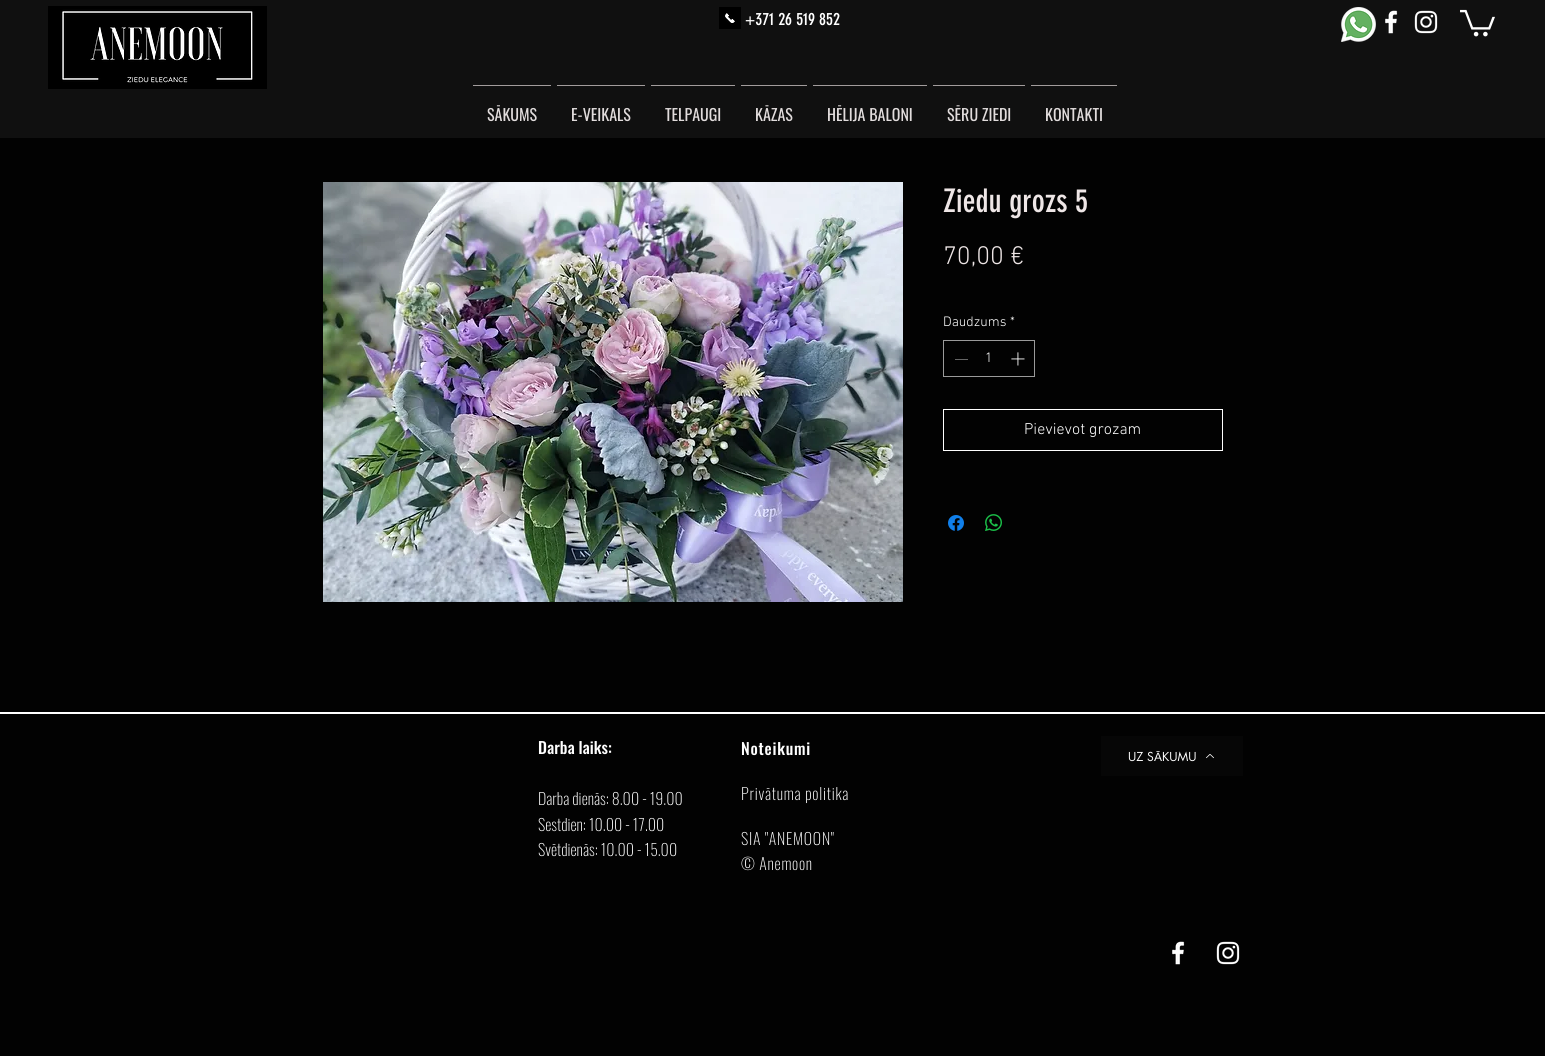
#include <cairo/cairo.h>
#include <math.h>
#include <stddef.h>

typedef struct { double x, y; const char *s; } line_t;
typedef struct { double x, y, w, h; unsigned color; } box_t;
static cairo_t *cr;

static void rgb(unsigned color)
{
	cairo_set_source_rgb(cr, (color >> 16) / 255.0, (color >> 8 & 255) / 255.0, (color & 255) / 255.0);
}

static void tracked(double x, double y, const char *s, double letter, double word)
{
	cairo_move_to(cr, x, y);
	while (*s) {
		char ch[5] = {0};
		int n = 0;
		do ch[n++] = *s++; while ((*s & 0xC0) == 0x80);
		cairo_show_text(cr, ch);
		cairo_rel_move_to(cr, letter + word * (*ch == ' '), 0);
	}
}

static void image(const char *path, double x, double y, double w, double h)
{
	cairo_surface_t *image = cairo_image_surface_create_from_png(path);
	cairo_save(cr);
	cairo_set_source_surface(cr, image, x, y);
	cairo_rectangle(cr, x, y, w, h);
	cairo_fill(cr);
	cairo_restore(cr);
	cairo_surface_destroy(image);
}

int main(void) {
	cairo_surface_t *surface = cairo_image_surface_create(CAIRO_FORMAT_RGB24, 1545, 1056);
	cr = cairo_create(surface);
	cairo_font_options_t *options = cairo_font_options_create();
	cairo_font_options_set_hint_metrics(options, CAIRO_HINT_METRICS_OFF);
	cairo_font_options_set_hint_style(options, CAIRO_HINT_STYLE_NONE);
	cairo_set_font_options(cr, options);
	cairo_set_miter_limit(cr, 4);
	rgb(0x020202);
	cairo_paint(cr);
	rgb(0x101010);
	cairo_rectangle(cr, 0, 0, 1545, 138);
	cairo_fill(cr);
	image("img/1.png", 48, 6, 219, 83);
	image("img/2.png", 719, 7, 22, 22);
	{
		static const box_t items[] = {
			{473, 85, 78, 1, 0xa29c9c},
			{557, 85, 88, 1, 0xa29c9c},
			{651, 85, 84, 1, 0xa29c9c},
			{741, 85, 66, 1, 0xa29c9c},
			{813, 85, 114, 1, 0xa29c9c},
			{933, 85, 92, 1, 0xa29c9c},
			{1031, 85, 86, 1, 0xa29c9c},
		};
		for (size_t i = 0; i < sizeof items / sizeof *items; i++) {
			rgb(items[i].color);
			cairo_rectangle(cr, items[i].x, items[i].y, items[i].w, items[i].h);
			cairo_fill(cr);
		}
	}
	image("img/3.png", 1341, 7, 35, 35);
	image("img/4.png", 1385, 10, 13, 24);
	image("img/5.png", 1414, 10, 24, 24);
	image("img/6.png", 1460, 9, 35, 28);
	image("img/7.png", 323, 182, 580, 420);
	cairo_rectangle(cr, 943.5, 340.5, 91, 36);
	rgb(0x9a9a9a);
	cairo_set_line_width(cr, 1);
	cairo_stroke(cr);
	rgb(0x656565);
	cairo_rectangle(cr, 955, 359, 13, 1);
	cairo_fill(cr);
	image("img/8.png", 1011, 352, 14, 14);
	cairo_rectangle(cr, 943.5, 409.5, 279, 41);
	rgb(0xffffff);
	cairo_stroke(cr);
	image("img/9.png", 948, 515, 16, 16);
	image("img/10.png", 985, 514, 17, 17);
	cairo_rectangle(cr, 0, 712, 1545, 2);
	cairo_fill(cr);
	rgb(0x060606);
	cairo_rectangle(cr, 1101, 736, 142, 40);
	cairo_fill(cr);
	image("img/11.png", 1206, 754, 8, 5);
	image("img/12.png", 1172, 941, 13, 24);
	image("img/13.png", 1216, 941, 24, 24);
	cairo_select_font_face(cr, "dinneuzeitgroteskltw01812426", CAIRO_FONT_SLANT_NORMAL, CAIRO_FONT_WEIGHT_NORMAL);
	cairo_set_font_size(cr, 17);
	rgb(0xffffff);
	cairo_move_to(cr, 745, 25);
	cairo_show_text(cr, "+371 26 519 852");
	cairo_select_font_face(cr, "Oswald", CAIRO_FONT_SLANT_NORMAL, CAIRO_FONT_WEIGHT_NORMAL);
	cairo_set_font_size(cr, 16);
	rgb(0xe2dddd);
	{
		static const line_t items[] = {
			{487, 121, "SĀKUMS"},
			{571, 121, "E-VEIKALS"},
			{665, 121, "TELPAUGI"},
			{755, 121, "KĀZAS"},
			{827, 121, "HĒLIJA BALONI"},
			{947, 121, "SĒRU ZIEDI"},
			{1045, 121, "KONTAKTI"},
		};
		for (size_t i = 0; i < sizeof items / sizeof *items; i++) {
			cairo_move_to(cr, items[i].x, items[i].y);
			cairo_show_text(cr, items[i].s);
		}
	}
	cairo_select_font_face(cr, "dinneuzeitgroteskltw01812426", CAIRO_FONT_SLANT_NORMAL, CAIRO_FONT_WEIGHT_NORMAL);
	cairo_set_font_size(cr, 32);
	rgb(0xeee6e6);
	cairo_move_to(cr, 943, 212);
	cairo_show_text(cr, "Ziedu grozs 5");
	cairo_select_font_face(cr, "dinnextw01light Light", CAIRO_FONT_SLANT_NORMAL, CAIRO_FONT_WEIGHT_NORMAL);
	cairo_set_font_size(cr, 26);
	cairo_move_to(cr, 943, 264);
	cairo_show_text(cr, "70,00 €");
	cairo_set_font_size(cr, 14);
	rgb(0xffffff);
	{
		static const line_t items[] = {
			{943, 326, "Daudzums"},
			{1010, 326, "*"},
			{985, 362, "1"},
		};
		for (size_t i = 0; i < sizeof items / sizeof *items; i++) {
			cairo_move_to(cr, items[i].x, items[i].y);
			cairo_show_text(cr, items[i].s);
		}
	}
	cairo_set_font_size(cr, 16);
	cairo_move_to(cr, 1024, 434);
	cairo_show_text(cr, "Pievievot grozam");
	cairo_select_font_face(cr, "Oswald Medium", CAIRO_FONT_SLANT_NORMAL, CAIRO_FONT_WEIGHT_NORMAL);
	cairo_move_to(cr, 538, 754);
	cairo_show_text(cr, "Darba laiks:");
	cairo_select_font_face(cr, "Oswald ExtraLight", CAIRO_FONT_SLANT_NORMAL, CAIRO_FONT_WEIGHT_NORMAL);
	{
		static const line_t items[] = {
			{538, 805, "Darba dienās: 8.00 - 19.00"},
			{538, 831, "Sestdien: 10.00 - 17.00"},
			{538, 856, "Svētdienās: 10.00 - 15.00"},
		};
		for (size_t i = 0; i < sizeof items / sizeof *items; i++) {
			cairo_move_to(cr, items[i].x, items[i].y);
			cairo_show_text(cr, items[i].s);
		}
	}
	cairo_select_font_face(cr, "Oswald Medium", CAIRO_FONT_SLANT_NORMAL, CAIRO_FONT_WEIGHT_NORMAL);
	tracked(741, 755, "Noteikumi", 0.75, 0);
	cairo_select_font_face(cr, "Oswald ExtraLight", CAIRO_FONT_SLANT_NORMAL, CAIRO_FONT_WEIGHT_NORMAL);
	{
		static const line_t items[] = {
			{741, 800, "Privātuma politika"},
			{741, 845, "SIA \"ANEMOON\""},
			{741, 870, "© Anemoon"},
		};
		for (size_t i = 0; i < sizeof items / sizeof *items; i++) {
			tracked(items[i].x, items[i].y, items[i].s, 0.75, 0);
		}
	}
	cairo_select_font_face(cr, "futura", CAIRO_FONT_SLANT_NORMAL, CAIRO_FONT_WEIGHT_NORMAL);
	cairo_set_font_size(cr, 12);
	cairo_move_to(cr, 1128, 761);
	cairo_show_text(cr, "UZ S");
	cairo_select_font_face(cr, "Liberation Sans", CAIRO_FONT_SLANT_NORMAL, CAIRO_FONT_WEIGHT_NORMAL);
	cairo_move_to(cr, 1154, 761);
	cairo_show_text(cr, "Ā");
	cairo_select_font_face(cr, "futura", CAIRO_FONT_SLANT_NORMAL, CAIRO_FONT_WEIGHT_NORMAL);
	cairo_move_to(cr, 1162, 761);
	cairo_show_text(cr, "KUMU");
	cairo_surface_write_to_png(surface, "page.png");
	cairo_font_options_destroy(options);
	cairo_destroy(cr);
	cairo_surface_destroy(surface);
	return 0;
}
